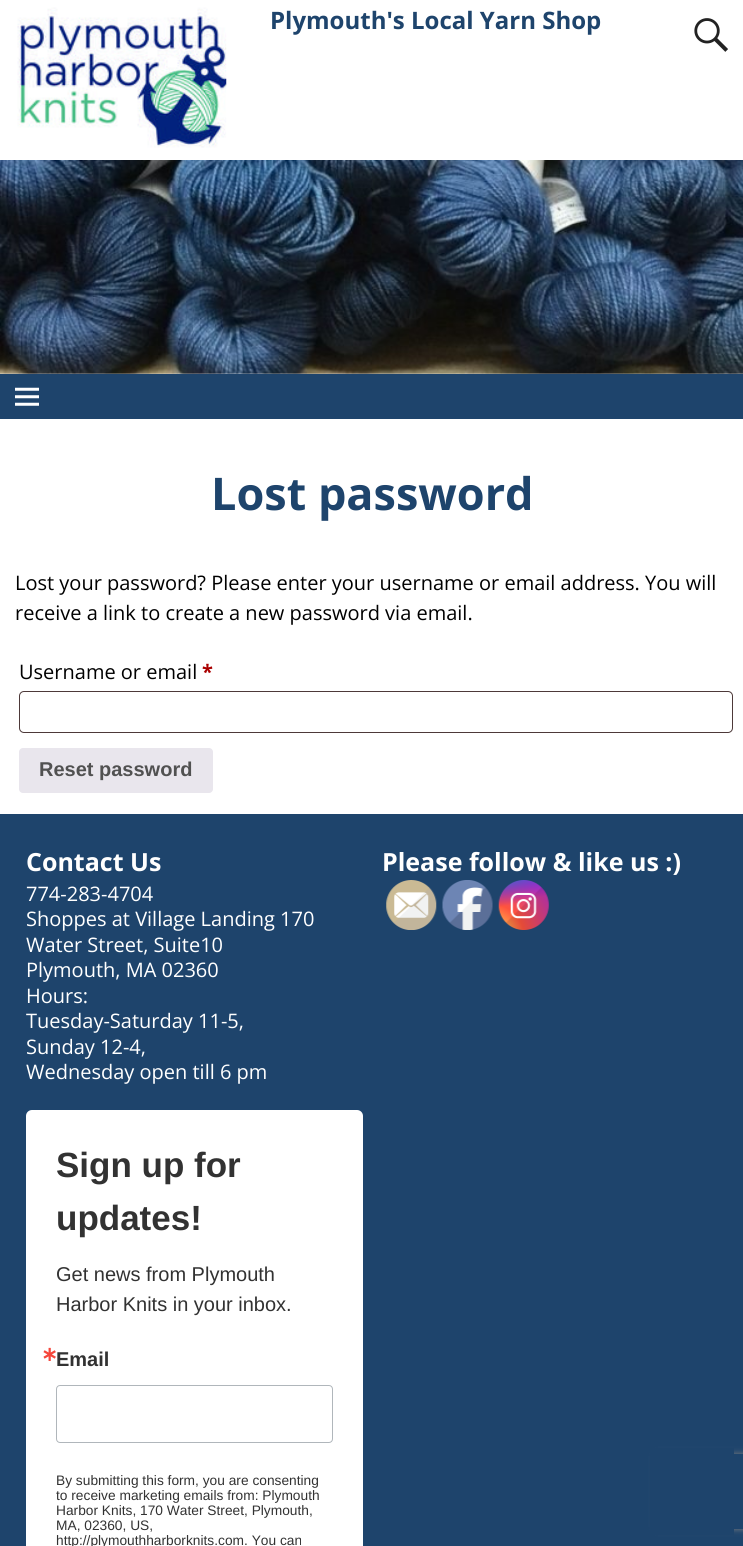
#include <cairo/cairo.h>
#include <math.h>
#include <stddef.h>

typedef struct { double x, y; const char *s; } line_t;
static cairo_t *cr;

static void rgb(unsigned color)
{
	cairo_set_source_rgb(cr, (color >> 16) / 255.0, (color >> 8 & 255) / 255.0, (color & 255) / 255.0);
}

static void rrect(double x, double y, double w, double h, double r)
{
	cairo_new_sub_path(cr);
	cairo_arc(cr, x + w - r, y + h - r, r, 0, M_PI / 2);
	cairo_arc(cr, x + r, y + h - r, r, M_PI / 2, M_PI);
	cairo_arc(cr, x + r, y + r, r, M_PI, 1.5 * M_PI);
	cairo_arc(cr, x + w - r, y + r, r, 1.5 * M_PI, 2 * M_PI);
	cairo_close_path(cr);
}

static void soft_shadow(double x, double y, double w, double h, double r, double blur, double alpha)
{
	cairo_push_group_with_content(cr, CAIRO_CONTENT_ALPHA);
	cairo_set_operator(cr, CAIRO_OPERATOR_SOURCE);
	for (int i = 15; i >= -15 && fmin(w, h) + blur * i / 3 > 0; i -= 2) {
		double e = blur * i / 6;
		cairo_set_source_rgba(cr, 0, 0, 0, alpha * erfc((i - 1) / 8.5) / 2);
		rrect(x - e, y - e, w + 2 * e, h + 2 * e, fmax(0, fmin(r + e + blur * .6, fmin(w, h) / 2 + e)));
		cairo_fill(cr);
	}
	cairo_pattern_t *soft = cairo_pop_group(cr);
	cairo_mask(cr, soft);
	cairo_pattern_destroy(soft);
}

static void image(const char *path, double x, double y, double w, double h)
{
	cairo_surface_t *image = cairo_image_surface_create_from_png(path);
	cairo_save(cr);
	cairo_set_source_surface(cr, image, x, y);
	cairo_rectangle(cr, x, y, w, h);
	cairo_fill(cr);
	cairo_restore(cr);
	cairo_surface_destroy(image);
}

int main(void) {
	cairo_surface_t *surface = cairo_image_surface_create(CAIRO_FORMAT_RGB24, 743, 1546);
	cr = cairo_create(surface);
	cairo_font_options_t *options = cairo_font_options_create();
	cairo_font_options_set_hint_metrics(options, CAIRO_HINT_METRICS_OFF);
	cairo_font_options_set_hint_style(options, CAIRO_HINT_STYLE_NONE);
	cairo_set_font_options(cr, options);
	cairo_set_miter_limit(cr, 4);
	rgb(0xffffff);
	cairo_paint(cr);
	image("img/1.png", 17, 7, 210, 141);
	image("img/2.png", 694, 18, 34, 34);
	image("img/3.png", 0, 160, 743, 214);
	rgb(0x1e446c);
	cairo_rectangle(cr, 0, 374, 743, 45);
	cairo_fill(cr);
	image("img/4.png", 15, 387, 24, 19);
	rrect(19.5, 691.5, 713, 41, 4.5);
	rgb(0x4d3939);
	cairo_set_line_width(cr, 1);
	cairo_stroke(cr);
	rgb(0xe9e6ed);
	rrect(19, 748, 194, 45, 4);
	cairo_fill(cr);
	rgb(0x1e446c);
	cairo_rectangle(cr, 0, 814, 743, 732);
	cairo_fill(cr);
	cairo_save(cr);
	cairo_set_fill_rule(cr, CAIRO_FILL_RULE_EVEN_ODD);
	cairo_new_path(cr);
	cairo_move_to(cr, 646, 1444);
	cairo_line_to(cr, 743, 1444);
	cairo_line_to(cr, 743, 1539);
	cairo_line_to(cr, 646, 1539);
	cairo_close_path(cr);
	cairo_move_to(cr, 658.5, 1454);
	cairo_line_to(cr, 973.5, 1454);
	cairo_curve_to(cr, 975, 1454, 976, 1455, 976, 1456.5);
	cairo_line_to(cr, 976, 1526.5);
	cairo_curve_to(cr, 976, 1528, 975, 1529, 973.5, 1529);
	cairo_line_to(cr, 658.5, 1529);
	cairo_curve_to(cr, 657, 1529, 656, 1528, 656, 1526.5);
	cairo_line_to(cr, 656, 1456.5);
	cairo_curve_to(cr, 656, 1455, 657, 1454, 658.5, 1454);
	cairo_close_path(cr);
	cairo_clip(cr);
	rgb(0x808080);
	soft_shadow(656, 1454, 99, 75, 2.5, 3, 1);
	cairo_restore(cr);
	cairo_rectangle(cr, 650, 1448, 84, 87);
	cairo_fill(cr);
	image("img/5.png", 386, 880, 51, 50);
	image("img/6.png", 442, 880, 51, 50);
	image("img/7.png", 498, 880, 51, 50);
	rgb(0xffffff);
	rrect(26, 1110, 337, 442, 6);
	cairo_fill(cr);
	rrect(56.5, 1385.5, 276, 57, 3.5);
	rgb(0xb0b6bb);
	cairo_stroke(cr);
	cairo_select_font_face(cr, "Open Sans", CAIRO_FONT_SLANT_NORMAL, CAIRO_FONT_WEIGHT_BOLD);
	cairo_set_font_size(cr, 24);
	rgb(0x1e446c);
	cairo_move_to(cr, 270, 29);
	cairo_show_text(cr, "Plymouth's Local Yarn Shop");
	cairo_set_font_size(cr, 45);
	cairo_move_to(cr, 211, 510);
	cairo_show_text(cr, "Lost password");
	cairo_select_font_face(cr, "Open Sans", CAIRO_FONT_SLANT_NORMAL, CAIRO_FONT_WEIGHT_NORMAL);
	cairo_set_font_size(cr, 20);
	rgb(0x000000);
	{
		static const line_t items[] = {
			{15, 590, "Lost your password? Please enter your username or email address. You will"},
			{15, 620, "receive a link to create a new password via email."},
			{19, 679, "Username or email"},
		};
		for (size_t i = 0; i < sizeof items / sizeof *items; i++) {
			cairo_move_to(cr, items[i].x, items[i].y);
			cairo_show_text(cr, items[i].s);
		}
	}
	cairo_select_font_face(cr, "Open Sans", CAIRO_FONT_SLANT_NORMAL, CAIRO_FONT_WEIGHT_BOLD);
	rgb(0xaa0000);
	cairo_move_to(cr, 202, 679);
	cairo_show_text(cr, "*");
	cairo_select_font_face(cr, "Liberation Sans", CAIRO_FONT_SLANT_NORMAL, CAIRO_FONT_WEIGHT_BOLD);
	rgb(0x515151);
	cairo_move_to(cr, 39, 776);
	cairo_show_text(cr, "Reset password");
	cairo_select_font_face(cr, "Open Sans", CAIRO_FONT_SLANT_NORMAL, CAIRO_FONT_WEIGHT_BOLD);
	cairo_set_font_size(cr, 25);
	rgb(0xffffff);
	cairo_move_to(cr, 26, 871);
	cairo_show_text(cr, "Contact Us");
	cairo_select_font_face(cr, "Open Sans", CAIRO_FONT_SLANT_NORMAL, CAIRO_FONT_WEIGHT_NORMAL);
	cairo_set_font_size(cr, 20);
	{
		static const line_t items[] = {
			{26, 901, "774-283-4704"},
			{26, 926, "Shoppes at Village Landing 170"},
			{26, 952, "Water Street, Suite10"},
			{26, 977, "Plymouth, MA 02360"},
			{26, 1003, "Hours:"},
			{26, 1028, "Tuesday-Saturday 11-5,"},
			{26, 1054, "Sunday 12-4,"},
			{26, 1079, "Wednesday open till 6 pm"},
		};
		for (size_t i = 0; i < sizeof items / sizeof *items; i++) {
			cairo_move_to(cr, items[i].x, items[i].y);
			cairo_show_text(cr, items[i].s);
		}
	}
	cairo_select_font_face(cr, "Open Sans", CAIRO_FONT_SLANT_NORMAL, CAIRO_FONT_WEIGHT_BOLD);
	cairo_set_font_size(cr, 25);
	cairo_move_to(cr, 382, 871);
	cairo_show_text(cr, "Please follow & like us :)");
	cairo_select_font_face(cr, "Liberation Sans", CAIRO_FONT_SLANT_NORMAL, CAIRO_FONT_WEIGHT_BOLD);
	cairo_set_font_size(cr, 35);
	rgb(0x323232);
	cairo_move_to(cr, 56, 1177);
	cairo_show_text(cr, "Sign up for");
	cairo_move_to(cr, 56, 1230);
	cairo_show_text(cr, "updates!");
	cairo_select_font_face(cr, "Liberation Sans", CAIRO_FONT_SLANT_NORMAL, CAIRO_FONT_WEIGHT_NORMAL);
	cairo_set_font_size(cr, 20);
	cairo_move_to(cr, 56, 1281);
	cairo_show_text(cr, "Get news from Plymouth");
	cairo_move_to(cr, 56, 1311);
	cairo_show_text(cr, "Harbor Knits in your inbox.");
	cairo_select_font_face(cr, "DejaVu Sans", CAIRO_FONT_SLANT_NORMAL, CAIRO_FONT_WEIGHT_BOLD);
	rgb(0xf5463b);
	cairo_move_to(cr, 41, 1361);
	cairo_show_text(cr, "∗");
	cairo_select_font_face(cr, "Liberation Sans", CAIRO_FONT_SLANT_NORMAL, CAIRO_FONT_WEIGHT_BOLD);
	rgb(0x323232);
	cairo_move_to(cr, 56, 1366);
	cairo_show_text(cr, "Email");
	cairo_select_font_face(cr, "Liberation Sans", CAIRO_FONT_SLANT_NORMAL, CAIRO_FONT_WEIGHT_NORMAL);
	cairo_set_font_size(cr, 13.75);
	{
		static const line_t items[] = {
			{56, 1485, "By submitting this form, you are consenting"},
			{56, 1500, "to receive marketing emails from: Plymouth"},
			{56, 1515, "Harbor Knits, 170 Water Street, Plymouth,"},
			{56, 1530, "MA, 02360, US,"},
			{56, 1545, "http://plymouthharborknits.com. You can"},
		};
		for (size_t i = 0; i < sizeof items / sizeof *items; i++) {
			cairo_move_to(cr, items[i].x, items[i].y);
			cairo_show_text(cr, items[i].s);
		}
	}
	cairo_surface_write_to_png(surface, "page.png");
	cairo_font_options_destroy(options);
	cairo_destroy(cr);
	cairo_surface_destroy(surface);
	return 0;
}
